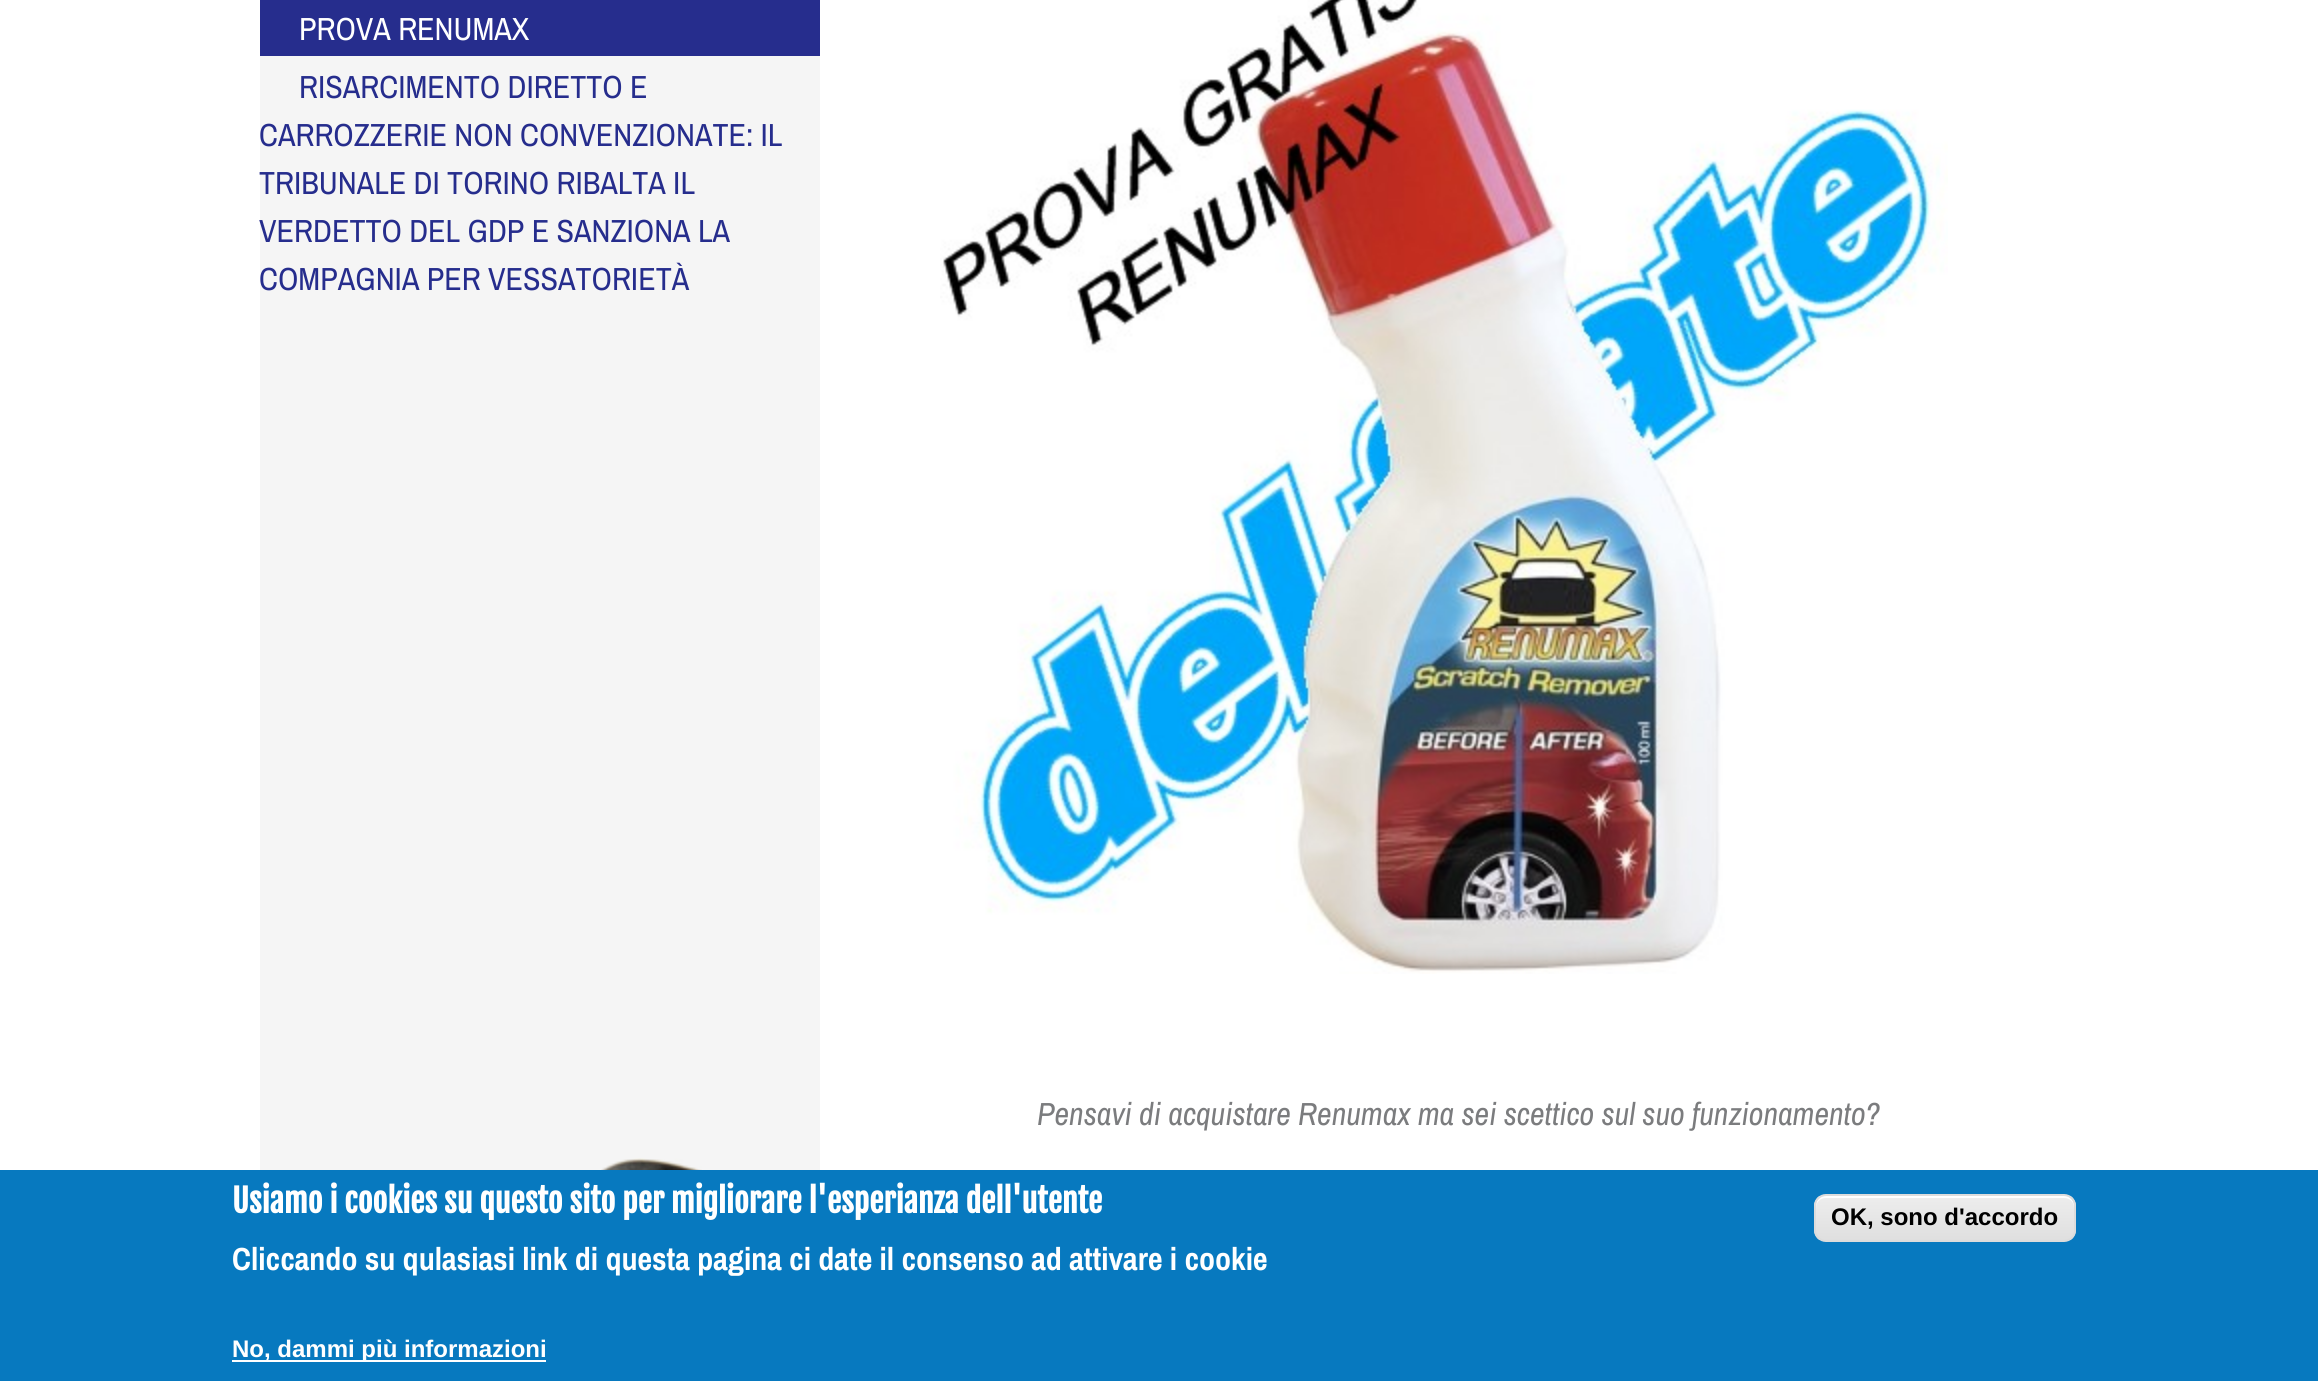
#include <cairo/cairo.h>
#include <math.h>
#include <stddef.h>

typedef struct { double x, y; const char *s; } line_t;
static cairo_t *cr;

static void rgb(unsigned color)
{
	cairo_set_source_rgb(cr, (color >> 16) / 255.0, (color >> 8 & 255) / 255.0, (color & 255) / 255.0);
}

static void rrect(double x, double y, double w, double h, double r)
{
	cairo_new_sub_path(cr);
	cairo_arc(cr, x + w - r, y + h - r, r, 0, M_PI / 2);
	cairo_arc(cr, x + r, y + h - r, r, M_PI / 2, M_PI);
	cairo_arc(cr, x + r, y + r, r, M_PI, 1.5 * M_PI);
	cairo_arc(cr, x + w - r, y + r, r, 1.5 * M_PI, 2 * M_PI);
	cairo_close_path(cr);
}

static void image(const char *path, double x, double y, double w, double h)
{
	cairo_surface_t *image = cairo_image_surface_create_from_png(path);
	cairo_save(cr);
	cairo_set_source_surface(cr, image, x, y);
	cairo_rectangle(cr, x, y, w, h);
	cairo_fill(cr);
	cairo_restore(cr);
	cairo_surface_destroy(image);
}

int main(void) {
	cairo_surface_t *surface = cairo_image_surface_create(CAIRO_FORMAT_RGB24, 2318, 1381);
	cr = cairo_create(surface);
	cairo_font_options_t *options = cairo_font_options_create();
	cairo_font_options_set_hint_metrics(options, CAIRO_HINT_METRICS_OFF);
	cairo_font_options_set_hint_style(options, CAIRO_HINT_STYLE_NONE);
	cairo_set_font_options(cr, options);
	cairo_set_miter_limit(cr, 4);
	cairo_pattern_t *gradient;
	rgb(0xffffff);
	cairo_paint(cr);
	rgb(0xf5f5f5);
	cairo_rectangle(cr, 260, 56, 560, 1114);
	cairo_fill(cr);
	image("img/1.png", 601, 1158, 101, 12);
	rgb(0x262d8d);
	cairo_rectangle(cr, 260, 0, 560, 56);
	cairo_fill(cr);
	image("img/2.png", 940, 0, 1008, 974);
	rgb(0x0779bf);
	cairo_rectangle(cr, 0, 1170, 2318, 211);
	cairo_fill(cr);
	rgb(0xffffff);
	cairo_rectangle(cr, 232, 1360, 314, 2);
	cairo_fill(cr);
	cairo_save(cr);
	rrect(1814, 1194, 262, 48, 12);
	cairo_clip(cr);
	gradient = cairo_pattern_create_linear(1945, 1196, 1945, 1240);
	cairo_pattern_add_color_stop_rgba(gradient, 0.05, 0.929, 0.929, 0.929, 1);
	cairo_pattern_add_color_stop_rgba(gradient, 1, 0.875, 0.875, 0.875, 1);
	cairo_set_source(cr, gradient);
	cairo_pattern_destroy(gradient);
	cairo_rectangle(cr, 1814, 1196, 262, 44);
	cairo_fill(cr);
	cairo_restore(cr);
	cairo_new_path(cr);
	cairo_move_to(cr, 1826, 1198);
	cairo_line_to(cr, 2064, 1198);
	cairo_curve_to(cr, 2070, 1198, 2074, 1202, 2074, 1208);
	cairo_line_to(cr, 2074, 1206);
	cairo_curve_to(cr, 2074, 1200, 2070, 1196, 2064, 1196);
	cairo_line_to(cr, 1826, 1196);
	cairo_curve_to(cr, 1820, 1196, 1816, 1200, 1816, 1206);
	cairo_line_to(cr, 1816, 1208);
	cairo_curve_to(cr, 1816, 1202, 1820, 1198, 1826, 1198);
	cairo_close_path(cr);
	cairo_fill(cr);
	rrect(1815, 1195, 260, 46, 11);
	rgb(0xdcdcdc);
	cairo_stroke(cr);
	cairo_select_font_face(cr, "Archivo Narrow", CAIRO_FONT_SLANT_NORMAL, CAIRO_FONT_WEIGHT_NORMAL);
	cairo_set_font_size(cr, 32);
	rgb(0xffffff);
	cairo_move_to(cr, 299, 40);
	cairo_show_text(cr, "PROVA RENUMAX");
	rgb(0x262d8d);
	{
		static const line_t items[] = {
			{299, 98, "RISARCIMENTO DIRETTO E"},
			{259, 146, "CARROZZERIE NON CONVENZIONATE: IL"},
			{259, 194, "TRIBUNALE DI TORINO RIBALTA IL"},
			{259, 242, "VERDETTO DEL GDP E SANZIONA LA"},
			{259, 290, "COMPAGNIA PER VESSATORIETÀ"},
		};
		for (size_t i = 0; i < sizeof items / sizeof *items; i++) {
			cairo_move_to(cr, items[i].x, items[i].y);
			cairo_show_text(cr, items[i].s);
		}
	}
	cairo_select_font_face(cr, "Archivo Narrow", CAIRO_FONT_SLANT_ITALIC, CAIRO_FONT_WEIGHT_NORMAL);
	rgb(0x7b7c7e);
	cairo_move_to(cr, 1037, 1125);
	cairo_show_text(cr, "Pensavi di acquistare Renumax ma sei scettico sul suo funzionamento?");
	cairo_select_font_face(cr, "Fjalla One", CAIRO_FONT_SLANT_NORMAL, CAIRO_FONT_WEIGHT_BOLD);
	rgb(0xffffff);
	cairo_move_to(cr, 232, 1213);
	cairo_show_text(cr, "Usiamo i cookies su questo sito per migliorare l'esperianza dell'utente");
	cairo_select_font_face(cr, "Archivo Narrow", CAIRO_FONT_SLANT_NORMAL, CAIRO_FONT_WEIGHT_BOLD);
	cairo_move_to(cr, 232, 1270);
	cairo_show_text(cr, "Cliccando su qulasiasi link di questa pagina ci date il consenso ad attivare i cookie");
	cairo_select_font_face(cr, "Liberation Sans", CAIRO_FONT_SLANT_NORMAL, CAIRO_FONT_WEIGHT_BOLD);
	cairo_set_font_size(cr, 24);
	cairo_move_to(cr, 232, 1357);
	cairo_show_text(cr, "No, dammi più informazioni");
	rgb(0x000000);
	cairo_move_to(cr, 1831, 1225);
	cairo_show_text(cr, "OK, sono d'accordo");
	cairo_surface_write_to_png(surface, "page.png");
	cairo_font_options_destroy(options);
	cairo_destroy(cr);
	cairo_surface_destroy(surface);
	return 0;
}
